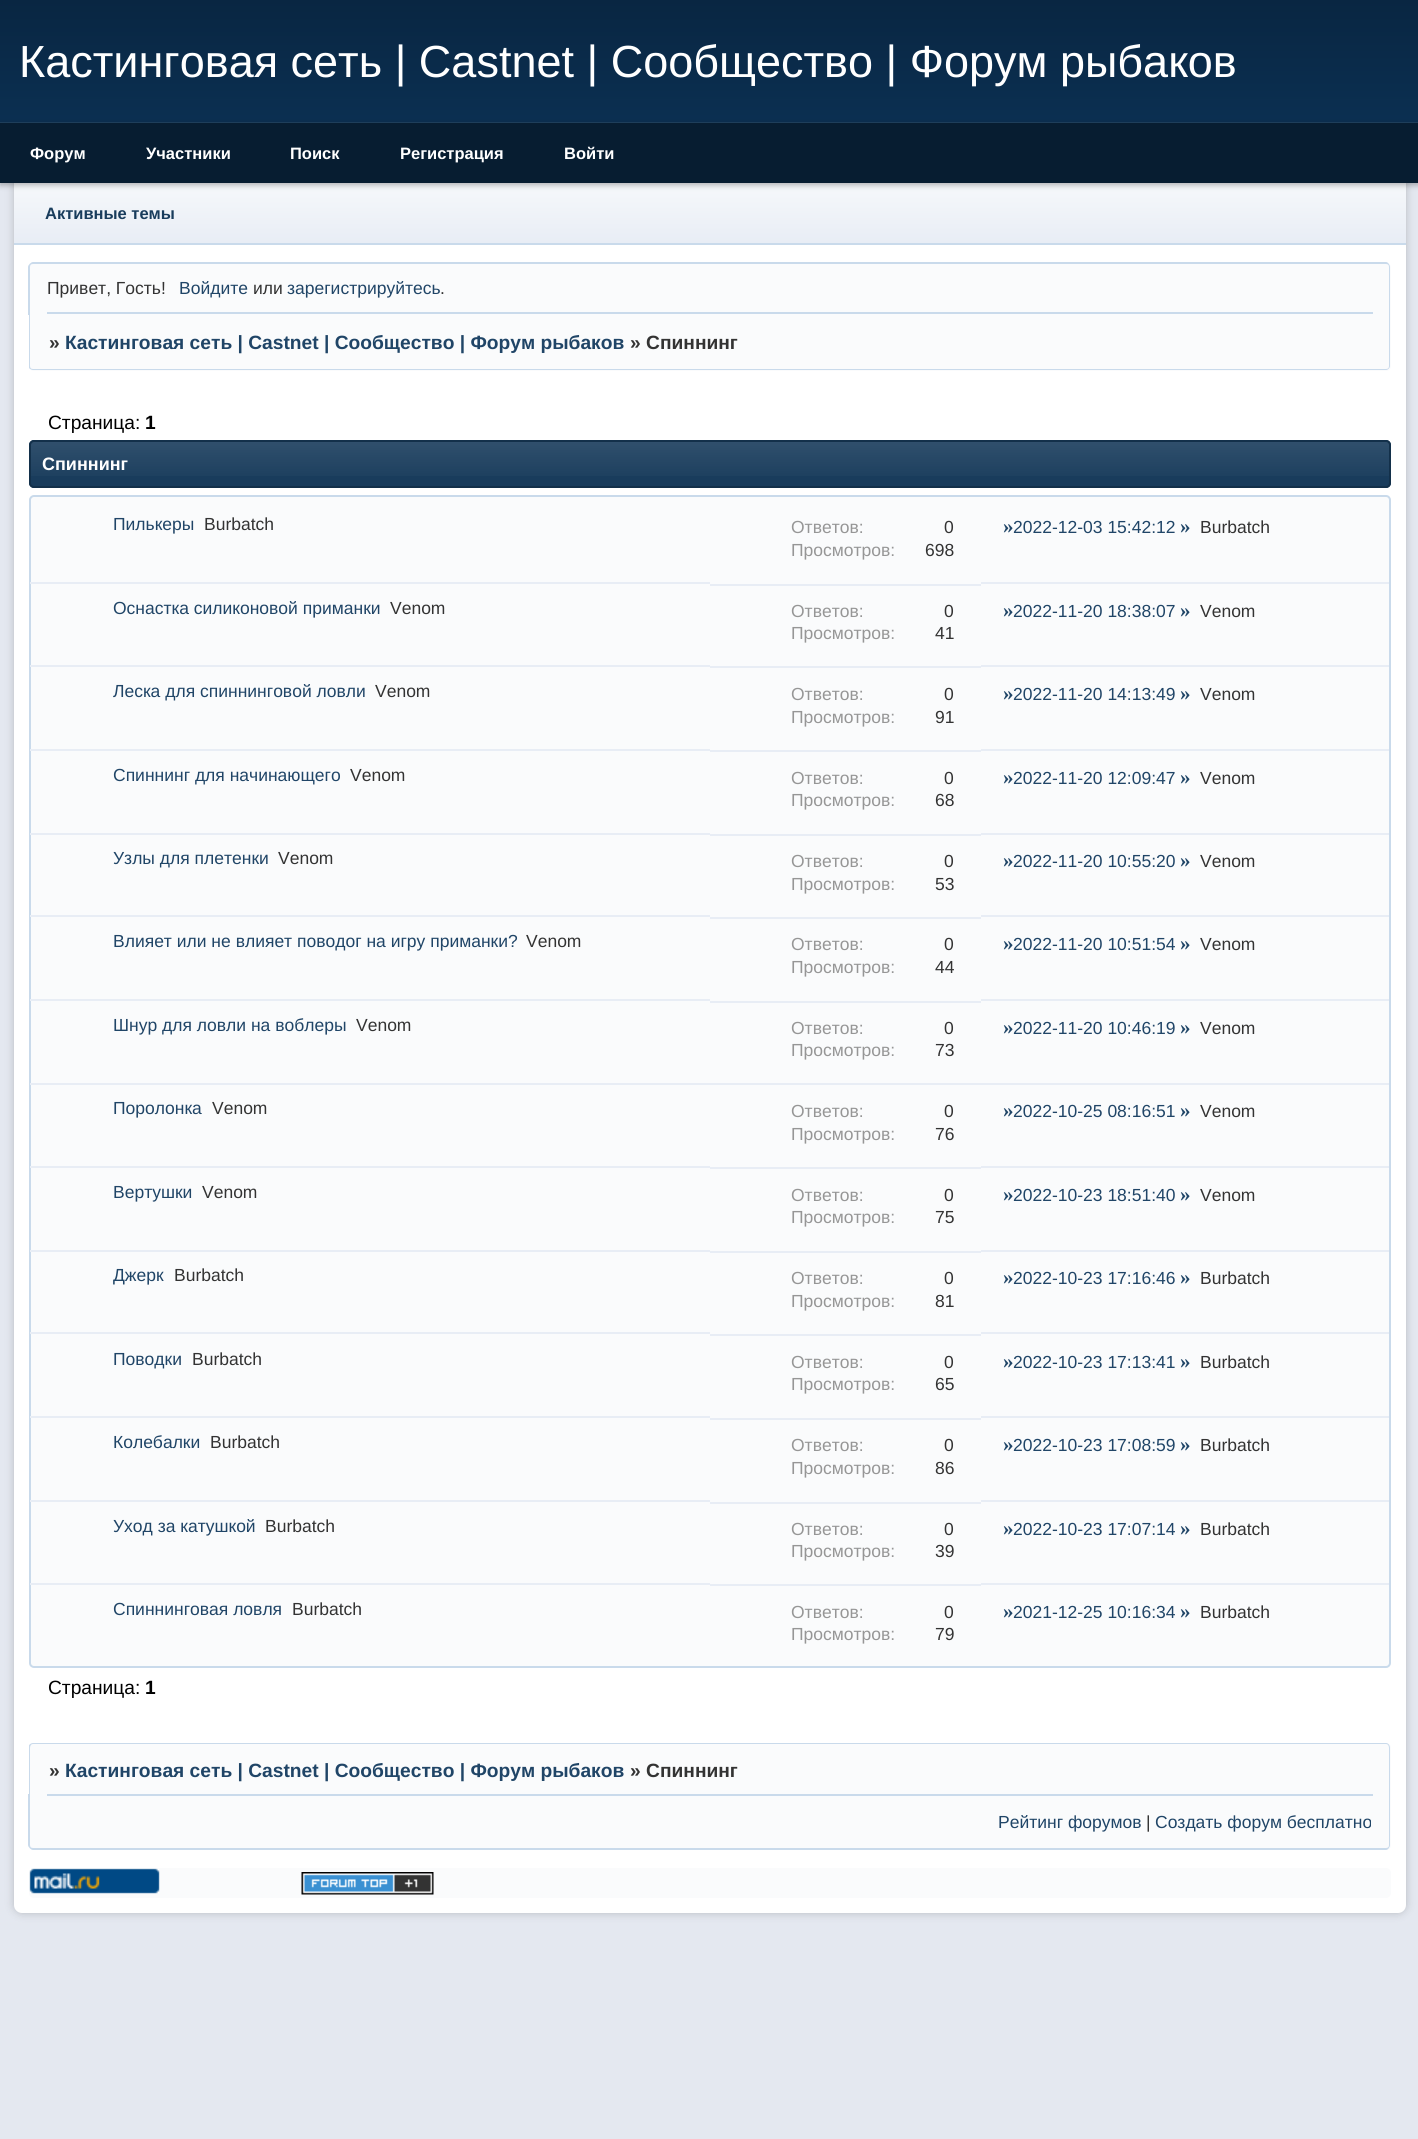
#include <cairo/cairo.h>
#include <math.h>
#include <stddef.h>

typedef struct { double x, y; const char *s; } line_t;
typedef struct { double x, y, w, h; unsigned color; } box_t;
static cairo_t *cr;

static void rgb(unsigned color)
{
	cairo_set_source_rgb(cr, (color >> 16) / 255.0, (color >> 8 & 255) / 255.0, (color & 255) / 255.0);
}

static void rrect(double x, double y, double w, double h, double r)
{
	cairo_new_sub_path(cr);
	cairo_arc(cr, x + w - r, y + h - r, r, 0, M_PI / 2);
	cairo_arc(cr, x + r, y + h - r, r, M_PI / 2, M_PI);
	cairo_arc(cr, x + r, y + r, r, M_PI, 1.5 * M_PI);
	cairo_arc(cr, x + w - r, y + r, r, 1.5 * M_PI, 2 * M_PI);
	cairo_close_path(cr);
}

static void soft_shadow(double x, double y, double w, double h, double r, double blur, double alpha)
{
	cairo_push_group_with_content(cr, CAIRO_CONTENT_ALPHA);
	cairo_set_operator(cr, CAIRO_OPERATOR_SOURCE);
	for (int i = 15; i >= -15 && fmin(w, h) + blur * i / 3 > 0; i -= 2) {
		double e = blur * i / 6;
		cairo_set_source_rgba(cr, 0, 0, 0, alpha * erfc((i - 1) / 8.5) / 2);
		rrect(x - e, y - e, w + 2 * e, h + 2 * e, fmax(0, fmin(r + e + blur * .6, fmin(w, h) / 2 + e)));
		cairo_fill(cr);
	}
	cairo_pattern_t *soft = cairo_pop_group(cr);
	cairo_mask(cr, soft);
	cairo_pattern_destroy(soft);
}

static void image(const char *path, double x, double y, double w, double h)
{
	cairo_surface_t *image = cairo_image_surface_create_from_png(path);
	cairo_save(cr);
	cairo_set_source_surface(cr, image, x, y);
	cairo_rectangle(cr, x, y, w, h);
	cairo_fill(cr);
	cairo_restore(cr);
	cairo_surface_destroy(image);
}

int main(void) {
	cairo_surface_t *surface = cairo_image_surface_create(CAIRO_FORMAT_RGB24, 1418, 2139);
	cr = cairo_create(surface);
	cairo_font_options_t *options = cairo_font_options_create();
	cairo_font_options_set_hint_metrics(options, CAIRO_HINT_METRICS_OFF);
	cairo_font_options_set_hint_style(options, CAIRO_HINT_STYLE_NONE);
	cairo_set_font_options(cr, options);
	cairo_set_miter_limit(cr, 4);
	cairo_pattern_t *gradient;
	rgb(0xe4e8f0);
	cairo_paint(cr);
	rgb(0x000000);
	soft_shadow(14, 0, 1392, 1913, 8, 4.5, 0.2);
	rgb(0xffffff);
	rrect(14, 0, 1392, 1913, 8);
	cairo_fill(cr);
	gradient = cairo_pattern_create_linear(710, 0, 710, 183);
	cairo_pattern_add_color_stop_rgba(gradient, 0, 0.035, 0.149, 0.259, 1);
	cairo_pattern_add_color_stop_rgba(gradient, 0.7, 0.043, 0.188, 0.322, 1);
	cairo_set_source(cr, gradient);
	cairo_pattern_destroy(gradient);
	cairo_rectangle(cr, 0, 0, 1418, 122);
	cairo_fill(cr);
	gradient = cairo_pattern_create_linear(710, 183, 710, 243);
	cairo_pattern_add_color_stop_rgba(gradient, 0, 0.965, 0.973, 0.984, 1);
	cairo_pattern_add_color_stop_rgba(gradient, 1, 0.91, 0.929, 0.961, 1);
	cairo_set_source(cr, gradient);
	cairo_pattern_destroy(gradient);
	cairo_rectangle(cr, 14, 183, 1392, 60);
	cairo_fill(cr);
	rgb(0x000000);
	soft_shadow(0, 125, 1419, 60, 0, 3, 0.3);
	{
		static const box_t items[] = {
			{0, 122, 1418, 1, 0x1e3e5a},
			{0, 123, 1418, 60, 0x071d31},
			{14, 243, 1392, 2, 0xc9daeb},
		};
		for (size_t i = 0; i < sizeof items / sizeof *items; i++) {
			rgb(items[i].color);
			cairo_rectangle(cr, items[i].x, items[i].y, items[i].w, items[i].h);
			cairo_fill(cr);
		}
	}
	rgb(0xfafbfc);
	cairo_new_path(cr);
	cairo_move_to(cr, 34, 263);
	cairo_line_to(cr, 1386, 263);
	cairo_curve_to(cr, 1389, 263, 1391, 265, 1391, 268);
	cairo_line_to(cr, 1391, 315);
	cairo_line_to(cr, 29, 315);
	cairo_line_to(cr, 29, 268);
	cairo_curve_to(cr, 29, 265, 31, 263, 34, 263);
	cairo_close_path(cr);
	cairo_fill(cr);
	rgb(0xc9daeb);
	cairo_set_fill_rule(cr, CAIRO_FILL_RULE_EVEN_ODD);
	cairo_new_path(cr);
	cairo_move_to(cr, 33, 262);
	cairo_line_to(cr, 1386, 262);
	cairo_curve_to(cr, 1388, 262, 1390, 265, 1390, 267);
	cairo_line_to(cr, 1390, 315);
	cairo_line_to(cr, 28, 315);
	cairo_line_to(cr, 28, 267);
	cairo_curve_to(cr, 28, 265, 31, 262, 33, 262);
	cairo_close_path(cr);
	cairo_move_to(cr, 33, 264);
	cairo_line_to(cr, 1386, 264);
	cairo_curve_to(cr, 1388, 264, 1389, 265, 1389, 267);
	cairo_line_to(cr, 1389, 315);
	cairo_line_to(cr, 30, 315);
	cairo_line_to(cr, 30, 267);
	cairo_curve_to(cr, 30, 265, 31, 264, 33, 264);
	cairo_close_path(cr);
	cairo_fill(cr);
	rgb(0xfafbfc);
	cairo_new_path(cr);
	cairo_move_to(cr, 29, 312);
	cairo_line_to(cr, 1391, 312);
	cairo_line_to(cr, 1391, 366);
	cairo_curve_to(cr, 1391, 369, 1389, 371, 1386, 371);
	cairo_line_to(cr, 34, 371);
	cairo_curve_to(cr, 31, 371, 29, 369, 29, 366);
	cairo_close_path(cr);
	cairo_fill(cr);
	cairo_save(cr);
	cairo_set_fill_rule(cr, CAIRO_FILL_RULE_WINDING);
	cairo_rectangle(cr, 29, 312, 1362, 59);
	cairo_clip(cr);
	rgb(0xc9daeb);
	cairo_set_fill_rule(cr, CAIRO_FILL_RULE_EVEN_ODD);
	cairo_new_path(cr);
	cairo_move_to(cr, 28, 312);
	cairo_line_to(cr, 1390, 312);
	cairo_line_to(cr, 1390, 366);
	cairo_curve_to(cr, 1390, 368, 1388, 370, 1386, 370);
	cairo_line_to(cr, 33, 370);
	cairo_curve_to(cr, 31, 370, 28, 368, 28, 366);
	cairo_close_path(cr);
	cairo_move_to(cr, 30, 312);
	cairo_line_to(cr, 1389, 312);
	cairo_line_to(cr, 1389, 366);
	cairo_curve_to(cr, 1389, 368, 1388, 369, 1386, 369);
	cairo_line_to(cr, 33, 369);
	cairo_curve_to(cr, 31, 369, 30, 368, 30, 366);
	cairo_close_path(cr);
	cairo_fill(cr);
	cairo_restore(cr);
	rgb(0xc9daeb);
	cairo_rectangle(cr, 47, 312, 1326, 2);
	cairo_fill(cr);
	rgb(0x193c5c);
	rrect(29, 440, 1362, 48, 5);
	cairo_fill(cr);
	cairo_save(cr);
	cairo_set_fill_rule(cr, CAIRO_FILL_RULE_WINDING);
	rrect(29, 440, 1362, 48, 5);
	cairo_clip(cr);
	gradient = cairo_pattern_create_linear(710, 441, 710, 486);
	cairo_pattern_add_color_stop_rgba(gradient, 0, 1, 1, 1, 0.1);
	cairo_pattern_add_color_stop_rgba(gradient, 1, 1, 1, 1, 0);
	cairo_set_source(cr, gradient);
	cairo_pattern_destroy(gradient);
	cairo_rectangle(cr, 29, 441, 1362, 35);
	cairo_fill(cr);
	cairo_restore(cr);
	rrect(30, 441, 1360, 46, 4);
	rgb(0x13304a);
	cairo_stroke(cr);
	rgb(0xfafbfc);
	rrect(30, 496, 1360, 1171, 4);
	cairo_fill_preserve(cr);
	rgb(0xc9daeb);
	cairo_stroke(cr);
	{
		static const box_t items[] = {
			{30, 582, 680, 2, 0xe8edf5},
			{710, 584, 271, 2, 0xe8edf5},
			{981, 582, 408, 2, 0xe8edf5},
			{30, 665, 680, 2, 0xe8edf5},
			{710, 666, 271, 2, 0xe8edf5},
			{981, 665, 408, 2, 0xe8edf5},
			{30, 749, 680, 2, 0xe8edf5},
			{710, 750, 271, 2, 0xe8edf5},
			{981, 749, 408, 2, 0xe8edf5},
			{30, 833, 680, 2, 0xe8edf5},
			{710, 834, 271, 2, 0xe8edf5},
			{981, 833, 408, 2, 0xe8edf5},
			{30, 915, 680, 2, 0xe8edf5},
			{710, 917, 271, 2, 0xe8edf5},
			{981, 915, 408, 2, 0xe8edf5},
			{30, 999, 680, 2, 0xe8edf5},
			{710, 1001, 271, 2, 0xe8edf5},
			{981, 999, 408, 2, 0xe8edf5},
			{30, 1083, 1359, 2, 0xe8edf5},
			{30, 1166, 680, 2, 0xe8edf5},
			{710, 1167, 271, 2, 0xe8edf5},
			{981, 1166, 408, 2, 0xe8edf5},
			{30, 1250, 680, 2, 0xe8edf5},
			{710, 1251, 271, 2, 0xe8edf5},
			{981, 1250, 408, 2, 0xe8edf5},
			{30, 1332, 680, 2, 0xe8edf5},
			{710, 1334, 271, 2, 0xe8edf5},
			{981, 1332, 408, 2, 0xe8edf5},
			{30, 1416, 680, 2, 0xe8edf5},
			{710, 1418, 271, 2, 0xe8edf5},
			{981, 1416, 408, 2, 0xe8edf5},
			{30, 1500, 680, 2, 0xe8edf5},
			{710, 1502, 271, 2, 0xe8edf5},
			{981, 1500, 408, 2, 0xe8edf5},
			{30, 1583, 680, 2, 0xe8edf5},
			{710, 1584, 271, 2, 0xe8edf5},
			{981, 1583, 408, 2, 0xe8edf5},
		};
		for (size_t i = 0; i < sizeof items / sizeof *items; i++) {
			rgb(items[i].color);
			cairo_rectangle(cr, items[i].x, items[i].y, items[i].w, items[i].h);
			cairo_fill(cr);
		}
	}
	rgb(0xfafbfc);
	cairo_new_path(cr);
	cairo_move_to(cr, 29, 1794);
	cairo_line_to(cr, 1391, 1794);
	cairo_line_to(cr, 1391, 1845);
	cairo_curve_to(cr, 1391, 1848, 1389, 1850, 1386, 1850);
	cairo_line_to(cr, 34, 1850);
	cairo_curve_to(cr, 31, 1850, 29, 1848, 29, 1845);
	cairo_close_path(cr);
	cairo_fill(cr);
	rgb(0xc9daeb);
	cairo_new_path(cr);
	cairo_move_to(cr, 28, 1794);
	cairo_line_to(cr, 1390, 1794);
	cairo_line_to(cr, 1390, 1845);
	cairo_curve_to(cr, 1390, 1847, 1388, 1850, 1386, 1850);
	cairo_line_to(cr, 33, 1850);
	cairo_curve_to(cr, 31, 1850, 28, 1847, 28, 1845);
	cairo_close_path(cr);
	cairo_move_to(cr, 30, 1794);
	cairo_line_to(cr, 1389, 1794);
	cairo_line_to(cr, 1389, 1845);
	cairo_curve_to(cr, 1389, 1847, 1388, 1848, 1386, 1848);
	cairo_line_to(cr, 33, 1848);
	cairo_curve_to(cr, 31, 1848, 30, 1847, 30, 1845);
	cairo_close_path(cr);
	cairo_fill(cr);
	rgb(0xfafbfc);
	cairo_new_path(cr);
	cairo_move_to(cr, 34, 1743);
	cairo_line_to(cr, 1386, 1743);
	cairo_curve_to(cr, 1389, 1743, 1391, 1745, 1391, 1748);
	cairo_line_to(cr, 1391, 1797);
	cairo_line_to(cr, 29, 1797);
	cairo_line_to(cr, 29, 1748);
	cairo_curve_to(cr, 29, 1745, 31, 1743, 34, 1743);
	cairo_close_path(cr);
	cairo_fill(cr);
	cairo_save(cr);
	cairo_set_fill_rule(cr, CAIRO_FILL_RULE_WINDING);
	cairo_rectangle(cr, 29, 1743, 1362, 54);
	cairo_clip(cr);
	rgb(0xc9daeb);
	cairo_set_fill_rule(cr, CAIRO_FILL_RULE_EVEN_ODD);
	cairo_new_path(cr);
	cairo_move_to(cr, 33, 1743);
	cairo_line_to(cr, 1386, 1743);
	cairo_curve_to(cr, 1388, 1743, 1390, 1745, 1390, 1748);
	cairo_line_to(cr, 1390, 1797);
	cairo_line_to(cr, 28, 1797);
	cairo_line_to(cr, 28, 1748);
	cairo_curve_to(cr, 28, 1745, 31, 1743, 33, 1743);
	cairo_close_path(cr);
	cairo_move_to(cr, 33, 1744);
	cairo_line_to(cr, 1386, 1744);
	cairo_curve_to(cr, 1388, 1744, 1389, 1746, 1389, 1748);
	cairo_line_to(cr, 1389, 1797);
	cairo_line_to(cr, 30, 1797);
	cairo_line_to(cr, 30, 1748);
	cairo_curve_to(cr, 30, 1746, 31, 1744, 33, 1744);
	cairo_close_path(cr);
	cairo_fill(cr);
	cairo_restore(cr);
	rgb(0xc9daeb);
	cairo_rectangle(cr, 47, 1794, 1326, 2);
	cairo_fill(cr);
	rgb(0xfafbfc);
	rrect(29, 1868, 1362, 30, 5);
	cairo_fill(cr);
	image("img/1.png", 29, 1868, 131, 26);
	image("img/2.png", 301, 1872, 133, 23);
	cairo_select_font_face(cr, "Liberation Sans", CAIRO_FONT_SLANT_NORMAL, CAIRO_FONT_WEIGHT_NORMAL);
	cairo_set_font_size(cr, 45);
	rgb(0xffffff);
	cairo_move_to(cr, 19, 77);
	cairo_show_text(cr, "Кастинговая сеть | Castnet | Сообщество | Форум рыбаков");
	cairo_select_font_face(cr, "Liberation Sans", CAIRO_FONT_SLANT_NORMAL, CAIRO_FONT_WEIGHT_BOLD);
	cairo_set_font_size(cr, 16.5);
	{
		static const line_t items[] = {
			{30, 159, "Форум"},
			{146, 159, "Участники"},
			{290, 159, "Поиск"},
			{400, 159, "Регистрация"},
			{564, 159, "Войти"},
		};
		for (size_t i = 0; i < sizeof items / sizeof *items; i++) {
			cairo_move_to(cr, items[i].x, items[i].y);
			cairo_show_text(cr, items[i].s);
		}
	}
	rgb(0x193c5c);
	cairo_move_to(cr, 45, 219);
	cairo_show_text(cr, "Активные темы");
	cairo_select_font_face(cr, "Liberation Sans", CAIRO_FONT_SLANT_NORMAL, CAIRO_FONT_WEIGHT_NORMAL);
	cairo_set_font_size(cr, 17.5);
	rgb(0x333333);
	cairo_move_to(cr, 47, 294);
	cairo_show_text(cr, "Привет, Гость!");
	rgb(0x204567);
	cairo_move_to(cr, 179, 294);
	cairo_show_text(cr, "Войдите");
	rgb(0x333333);
	cairo_move_to(cr, 253, 294);
	cairo_show_text(cr, "или");
	rgb(0x204567);
	cairo_move_to(cr, 287, 294);
	cairo_show_text(cr, "зарегистрируйтесь");
	rgb(0x333333);
	cairo_move_to(cr, 440, 294);
	cairo_show_text(cr, ".");
	cairo_select_font_face(cr, "Liberation Sans", CAIRO_FONT_SLANT_NORMAL, CAIRO_FONT_WEIGHT_BOLD);
	cairo_set_font_size(cr, 19.2);
	cairo_move_to(cr, 49, 349);
	cairo_show_text(cr, "»");
	rgb(0x204567);
	cairo_move_to(cr, 65, 349);
	cairo_show_text(cr, "Кастинговая сеть | Castnet | Сообщество | Форум рыбаков");
	rgb(0x333333);
	cairo_move_to(cr, 630, 349);
	cairo_show_text(cr, "» Спиннинг");
	cairo_select_font_face(cr, "Liberation Sans", CAIRO_FONT_SLANT_NORMAL, CAIRO_FONT_WEIGHT_NORMAL);
	rgb(0x000000);
	cairo_move_to(cr, 48, 429);
	cairo_show_text(cr, "Страница:");
	cairo_select_font_face(cr, "Liberation Sans", CAIRO_FONT_SLANT_NORMAL, CAIRO_FONT_WEIGHT_BOLD);
	cairo_move_to(cr, 145, 429);
	cairo_show_text(cr, "1");
	cairo_set_font_size(cr, 18);
	rgb(0xffffff);
	cairo_move_to(cr, 42, 470);
	cairo_show_text(cr, "Спиннинг");
	cairo_select_font_face(cr, "Liberation Sans", CAIRO_FONT_SLANT_NORMAL, CAIRO_FONT_WEIGHT_NORMAL);
	cairo_set_font_size(cr, 17.5);
	rgb(0x204567);
	cairo_move_to(cr, 113, 530);
	cairo_show_text(cr, "Пилькеры");
	rgb(0x333333);
	cairo_move_to(cr, 204, 530);
	cairo_show_text(cr, "Burbatch");
	rgb(0x969696);
	cairo_move_to(cr, 791, 533);
	cairo_show_text(cr, "Ответов:");
	rgb(0x333333);
	cairo_move_to(cr, 944, 533);
	cairo_show_text(cr, "0");
	cairo_select_font_face(cr, "Liberation Serif", CAIRO_FONT_SLANT_NORMAL, CAIRO_FONT_WEIGHT_BOLD);
	cairo_set_font_size(cr, 21);
	rgb(0x204567);
	cairo_move_to(cr, 1003, 533);
	cairo_show_text(cr, "»");
	cairo_select_font_face(cr, "Liberation Sans", CAIRO_FONT_SLANT_NORMAL, CAIRO_FONT_WEIGHT_NORMAL);
	cairo_set_font_size(cr, 17.5);
	cairo_move_to(cr, 1013, 533);
	cairo_show_text(cr, "2022-12-03 15:42:12");
	cairo_select_font_face(cr, "Liberation Serif", CAIRO_FONT_SLANT_NORMAL, CAIRO_FONT_WEIGHT_BOLD);
	cairo_set_font_size(cr, 21);
	cairo_move_to(cr, 1180, 533);
	cairo_show_text(cr, "»");
	cairo_select_font_face(cr, "Liberation Sans", CAIRO_FONT_SLANT_NORMAL, CAIRO_FONT_WEIGHT_NORMAL);
	cairo_set_font_size(cr, 17.5);
	rgb(0x333333);
	cairo_move_to(cr, 1200, 533);
	cairo_show_text(cr, "Burbatch");
	rgb(0x969696);
	cairo_move_to(cr, 791, 556);
	cairo_show_text(cr, "Просмотров:");
	rgb(0x333333);
	cairo_move_to(cr, 925, 556);
	cairo_show_text(cr, "698");
	rgb(0x204567);
	cairo_move_to(cr, 113, 614);
	cairo_show_text(cr, "Оснастка силиконовой приманки");
	rgb(0x333333);
	cairo_move_to(cr, 390, 614);
	cairo_show_text(cr, "Venom");
	rgb(0x969696);
	cairo_move_to(cr, 791, 617);
	cairo_show_text(cr, "Ответов:");
	rgb(0x333333);
	cairo_move_to(cr, 944, 617);
	cairo_show_text(cr, "0");
	cairo_select_font_face(cr, "Liberation Serif", CAIRO_FONT_SLANT_NORMAL, CAIRO_FONT_WEIGHT_BOLD);
	cairo_set_font_size(cr, 21);
	rgb(0x204567);
	cairo_move_to(cr, 1003, 617);
	cairo_show_text(cr, "»");
	cairo_select_font_face(cr, "Liberation Sans", CAIRO_FONT_SLANT_NORMAL, CAIRO_FONT_WEIGHT_NORMAL);
	cairo_set_font_size(cr, 17.5);
	cairo_move_to(cr, 1013, 617);
	cairo_show_text(cr, "2022-11-20 18:38:07");
	cairo_select_font_face(cr, "Liberation Serif", CAIRO_FONT_SLANT_NORMAL, CAIRO_FONT_WEIGHT_BOLD);
	cairo_set_font_size(cr, 21);
	cairo_move_to(cr, 1180, 617);
	cairo_show_text(cr, "»");
	cairo_select_font_face(cr, "Liberation Sans", CAIRO_FONT_SLANT_NORMAL, CAIRO_FONT_WEIGHT_NORMAL);
	cairo_set_font_size(cr, 17.5);
	rgb(0x333333);
	cairo_move_to(cr, 1200, 617);
	cairo_show_text(cr, "Venom");
	rgb(0x969696);
	cairo_move_to(cr, 791, 639);
	cairo_show_text(cr, "Просмотров:");
	rgb(0x333333);
	cairo_move_to(cr, 935, 639);
	cairo_show_text(cr, "41");
	rgb(0x204567);
	cairo_move_to(cr, 113, 697);
	cairo_show_text(cr, "Леска для спиннинговой ловли");
	rgb(0x333333);
	cairo_move_to(cr, 375, 697);
	cairo_show_text(cr, "Venom");
	rgb(0x969696);
	cairo_move_to(cr, 791, 700);
	cairo_show_text(cr, "Ответов:");
	rgb(0x333333);
	cairo_move_to(cr, 944, 700);
	cairo_show_text(cr, "0");
	cairo_select_font_face(cr, "Liberation Serif", CAIRO_FONT_SLANT_NORMAL, CAIRO_FONT_WEIGHT_BOLD);
	cairo_set_font_size(cr, 21);
	rgb(0x204567);
	cairo_move_to(cr, 1003, 700);
	cairo_show_text(cr, "»");
	cairo_select_font_face(cr, "Liberation Sans", CAIRO_FONT_SLANT_NORMAL, CAIRO_FONT_WEIGHT_NORMAL);
	cairo_set_font_size(cr, 17.5);
	cairo_move_to(cr, 1013, 700);
	cairo_show_text(cr, "2022-11-20 14:13:49");
	cairo_select_font_face(cr, "Liberation Serif", CAIRO_FONT_SLANT_NORMAL, CAIRO_FONT_WEIGHT_BOLD);
	cairo_set_font_size(cr, 21);
	cairo_move_to(cr, 1180, 700);
	cairo_show_text(cr, "»");
	cairo_select_font_face(cr, "Liberation Sans", CAIRO_FONT_SLANT_NORMAL, CAIRO_FONT_WEIGHT_NORMAL);
	cairo_set_font_size(cr, 17.5);
	rgb(0x333333);
	cairo_move_to(cr, 1200, 700);
	cairo_show_text(cr, "Venom");
	rgb(0x969696);
	cairo_move_to(cr, 791, 723);
	cairo_show_text(cr, "Просмотров:");
	rgb(0x333333);
	cairo_move_to(cr, 935, 723);
	cairo_show_text(cr, "91");
	rgb(0x204567);
	cairo_move_to(cr, 113, 781);
	cairo_show_text(cr, "Спиннинг для начинающего");
	rgb(0x333333);
	cairo_move_to(cr, 350, 781);
	cairo_show_text(cr, "Venom");
	rgb(0x969696);
	cairo_move_to(cr, 791, 784);
	cairo_show_text(cr, "Ответов:");
	rgb(0x333333);
	cairo_move_to(cr, 944, 784);
	cairo_show_text(cr, "0");
	cairo_select_font_face(cr, "Liberation Serif", CAIRO_FONT_SLANT_NORMAL, CAIRO_FONT_WEIGHT_BOLD);
	cairo_set_font_size(cr, 21);
	rgb(0x204567);
	cairo_move_to(cr, 1003, 784);
	cairo_show_text(cr, "»");
	cairo_select_font_face(cr, "Liberation Sans", CAIRO_FONT_SLANT_NORMAL, CAIRO_FONT_WEIGHT_NORMAL);
	cairo_set_font_size(cr, 17.5);
	cairo_move_to(cr, 1013, 784);
	cairo_show_text(cr, "2022-11-20 12:09:47");
	cairo_select_font_face(cr, "Liberation Serif", CAIRO_FONT_SLANT_NORMAL, CAIRO_FONT_WEIGHT_BOLD);
	cairo_set_font_size(cr, 21);
	cairo_move_to(cr, 1180, 784);
	cairo_show_text(cr, "»");
	cairo_select_font_face(cr, "Liberation Sans", CAIRO_FONT_SLANT_NORMAL, CAIRO_FONT_WEIGHT_NORMAL);
	cairo_set_font_size(cr, 17.5);
	rgb(0x333333);
	cairo_move_to(cr, 1200, 784);
	cairo_show_text(cr, "Venom");
	rgb(0x969696);
	cairo_move_to(cr, 791, 806);
	cairo_show_text(cr, "Просмотров:");
	rgb(0x333333);
	cairo_move_to(cr, 935, 806);
	cairo_show_text(cr, "68");
	rgb(0x204567);
	cairo_move_to(cr, 113, 864);
	cairo_show_text(cr, "Узлы для плетенки");
	rgb(0x333333);
	cairo_move_to(cr, 278, 864);
	cairo_show_text(cr, "Venom");
	rgb(0x969696);
	cairo_move_to(cr, 791, 867);
	cairo_show_text(cr, "Ответов:");
	rgb(0x333333);
	cairo_move_to(cr, 944, 867);
	cairo_show_text(cr, "0");
	cairo_select_font_face(cr, "Liberation Serif", CAIRO_FONT_SLANT_NORMAL, CAIRO_FONT_WEIGHT_BOLD);
	cairo_set_font_size(cr, 21);
	rgb(0x204567);
	cairo_move_to(cr, 1003, 867);
	cairo_show_text(cr, "»");
	cairo_select_font_face(cr, "Liberation Sans", CAIRO_FONT_SLANT_NORMAL, CAIRO_FONT_WEIGHT_NORMAL);
	cairo_set_font_size(cr, 17.5);
	cairo_move_to(cr, 1013, 867);
	cairo_show_text(cr, "2022-11-20 10:55:20");
	cairo_select_font_face(cr, "Liberation Serif", CAIRO_FONT_SLANT_NORMAL, CAIRO_FONT_WEIGHT_BOLD);
	cairo_set_font_size(cr, 21);
	cairo_move_to(cr, 1180, 867);
	cairo_show_text(cr, "»");
	cairo_select_font_face(cr, "Liberation Sans", CAIRO_FONT_SLANT_NORMAL, CAIRO_FONT_WEIGHT_NORMAL);
	cairo_set_font_size(cr, 17.5);
	rgb(0x333333);
	cairo_move_to(cr, 1200, 867);
	cairo_show_text(cr, "Venom");
	rgb(0x969696);
	cairo_move_to(cr, 791, 890);
	cairo_show_text(cr, "Просмотров:");
	rgb(0x333333);
	cairo_move_to(cr, 935, 890);
	cairo_show_text(cr, "53");
	rgb(0x204567);
	cairo_move_to(cr, 113, 947);
	cairo_show_text(cr, "Влияет или не влияет поводог на игру приманки?");
	rgb(0x333333);
	cairo_move_to(cr, 526, 947);
	cairo_show_text(cr, "Venom");
	rgb(0x969696);
	cairo_move_to(cr, 791, 950);
	cairo_show_text(cr, "Ответов:");
	rgb(0x333333);
	cairo_move_to(cr, 944, 950);
	cairo_show_text(cr, "0");
	cairo_select_font_face(cr, "Liberation Serif", CAIRO_FONT_SLANT_NORMAL, CAIRO_FONT_WEIGHT_BOLD);
	cairo_set_font_size(cr, 21);
	rgb(0x204567);
	cairo_move_to(cr, 1003, 950);
	cairo_show_text(cr, "»");
	cairo_select_font_face(cr, "Liberation Sans", CAIRO_FONT_SLANT_NORMAL, CAIRO_FONT_WEIGHT_NORMAL);
	cairo_set_font_size(cr, 17.5);
	cairo_move_to(cr, 1013, 950);
	cairo_show_text(cr, "2022-11-20 10:51:54");
	cairo_select_font_face(cr, "Liberation Serif", CAIRO_FONT_SLANT_NORMAL, CAIRO_FONT_WEIGHT_BOLD);
	cairo_set_font_size(cr, 21);
	cairo_move_to(cr, 1180, 950);
	cairo_show_text(cr, "»");
	cairo_select_font_face(cr, "Liberation Sans", CAIRO_FONT_SLANT_NORMAL, CAIRO_FONT_WEIGHT_NORMAL);
	cairo_set_font_size(cr, 17.5);
	rgb(0x333333);
	cairo_move_to(cr, 1200, 950);
	cairo_show_text(cr, "Venom");
	rgb(0x969696);
	cairo_move_to(cr, 791, 973);
	cairo_show_text(cr, "Просмотров:");
	rgb(0x333333);
	cairo_move_to(cr, 935, 973);
	cairo_show_text(cr, "44");
	rgb(0x204567);
	cairo_move_to(cr, 113, 1031);
	cairo_show_text(cr, "Шнур для ловли на воблеры");
	rgb(0x333333);
	cairo_move_to(cr, 356, 1031);
	cairo_show_text(cr, "Venom");
	rgb(0x969696);
	cairo_move_to(cr, 791, 1034);
	cairo_show_text(cr, "Ответов:");
	rgb(0x333333);
	cairo_move_to(cr, 944, 1034);
	cairo_show_text(cr, "0");
	cairo_select_font_face(cr, "Liberation Serif", CAIRO_FONT_SLANT_NORMAL, CAIRO_FONT_WEIGHT_BOLD);
	cairo_set_font_size(cr, 21);
	rgb(0x204567);
	cairo_move_to(cr, 1003, 1034);
	cairo_show_text(cr, "»");
	cairo_select_font_face(cr, "Liberation Sans", CAIRO_FONT_SLANT_NORMAL, CAIRO_FONT_WEIGHT_NORMAL);
	cairo_set_font_size(cr, 17.5);
	cairo_move_to(cr, 1013, 1034);
	cairo_show_text(cr, "2022-11-20 10:46:19");
	cairo_select_font_face(cr, "Liberation Serif", CAIRO_FONT_SLANT_NORMAL, CAIRO_FONT_WEIGHT_BOLD);
	cairo_set_font_size(cr, 21);
	cairo_move_to(cr, 1180, 1034);
	cairo_show_text(cr, "»");
	cairo_select_font_face(cr, "Liberation Sans", CAIRO_FONT_SLANT_NORMAL, CAIRO_FONT_WEIGHT_NORMAL);
	cairo_set_font_size(cr, 17.5);
	rgb(0x333333);
	cairo_move_to(cr, 1200, 1034);
	cairo_show_text(cr, "Venom");
	rgb(0x969696);
	cairo_move_to(cr, 791, 1056);
	cairo_show_text(cr, "Просмотров:");
	rgb(0x333333);
	cairo_move_to(cr, 935, 1056);
	cairo_show_text(cr, "73");
	rgb(0x204567);
	cairo_move_to(cr, 113, 1114);
	cairo_show_text(cr, "Поролонка");
	rgb(0x333333);
	cairo_move_to(cr, 212, 1114);
	cairo_show_text(cr, "Venom");
	rgb(0x969696);
	cairo_move_to(cr, 791, 1117);
	cairo_show_text(cr, "Ответов:");
	rgb(0x333333);
	cairo_move_to(cr, 944, 1117);
	cairo_show_text(cr, "0");
	cairo_select_font_face(cr, "Liberation Serif", CAIRO_FONT_SLANT_NORMAL, CAIRO_FONT_WEIGHT_BOLD);
	cairo_set_font_size(cr, 21);
	rgb(0x204567);
	cairo_move_to(cr, 1003, 1117);
	cairo_show_text(cr, "»");
	cairo_select_font_face(cr, "Liberation Sans", CAIRO_FONT_SLANT_NORMAL, CAIRO_FONT_WEIGHT_NORMAL);
	cairo_set_font_size(cr, 17.5);
	cairo_move_to(cr, 1013, 1117);
	cairo_show_text(cr, "2022-10-25 08:16:51");
	cairo_select_font_face(cr, "Liberation Serif", CAIRO_FONT_SLANT_NORMAL, CAIRO_FONT_WEIGHT_BOLD);
	cairo_set_font_size(cr, 21);
	cairo_move_to(cr, 1180, 1117);
	cairo_show_text(cr, "»");
	cairo_select_font_face(cr, "Liberation Sans", CAIRO_FONT_SLANT_NORMAL, CAIRO_FONT_WEIGHT_NORMAL);
	cairo_set_font_size(cr, 17.5);
	rgb(0x333333);
	cairo_move_to(cr, 1200, 1117);
	cairo_show_text(cr, "Venom");
	rgb(0x969696);
	cairo_move_to(cr, 791, 1140);
	cairo_show_text(cr, "Просмотров:");
	rgb(0x333333);
	cairo_move_to(cr, 935, 1140);
	cairo_show_text(cr, "76");
	rgb(0x204567);
	cairo_move_to(cr, 113, 1198);
	cairo_show_text(cr, "Вертушки");
	rgb(0x333333);
	cairo_move_to(cr, 202, 1198);
	cairo_show_text(cr, "Venom");
	rgb(0x969696);
	cairo_move_to(cr, 791, 1201);
	cairo_show_text(cr, "Ответов:");
	rgb(0x333333);
	cairo_move_to(cr, 944, 1201);
	cairo_show_text(cr, "0");
	cairo_select_font_face(cr, "Liberation Serif", CAIRO_FONT_SLANT_NORMAL, CAIRO_FONT_WEIGHT_BOLD);
	cairo_set_font_size(cr, 21);
	rgb(0x204567);
	cairo_move_to(cr, 1003, 1201);
	cairo_show_text(cr, "»");
	cairo_select_font_face(cr, "Liberation Sans", CAIRO_FONT_SLANT_NORMAL, CAIRO_FONT_WEIGHT_NORMAL);
	cairo_set_font_size(cr, 17.5);
	cairo_move_to(cr, 1013, 1201);
	cairo_show_text(cr, "2022-10-23 18:51:40");
	cairo_select_font_face(cr, "Liberation Serif", CAIRO_FONT_SLANT_NORMAL, CAIRO_FONT_WEIGHT_BOLD);
	cairo_set_font_size(cr, 21);
	cairo_move_to(cr, 1180, 1201);
	cairo_show_text(cr, "»");
	cairo_select_font_face(cr, "Liberation Sans", CAIRO_FONT_SLANT_NORMAL, CAIRO_FONT_WEIGHT_NORMAL);
	cairo_set_font_size(cr, 17.5);
	rgb(0x333333);
	cairo_move_to(cr, 1200, 1201);
	cairo_show_text(cr, "Venom");
	rgb(0x969696);
	cairo_move_to(cr, 791, 1223);
	cairo_show_text(cr, "Просмотров:");
	rgb(0x333333);
	cairo_move_to(cr, 935, 1223);
	cairo_show_text(cr, "75");
	rgb(0x204567);
	cairo_move_to(cr, 113, 1281);
	cairo_show_text(cr, "Джерк");
	rgb(0x333333);
	cairo_move_to(cr, 174, 1281);
	cairo_show_text(cr, "Burbatch");
	rgb(0x969696);
	cairo_move_to(cr, 791, 1284);
	cairo_show_text(cr, "Ответов:");
	rgb(0x333333);
	cairo_move_to(cr, 944, 1284);
	cairo_show_text(cr, "0");
	cairo_select_font_face(cr, "Liberation Serif", CAIRO_FONT_SLANT_NORMAL, CAIRO_FONT_WEIGHT_BOLD);
	cairo_set_font_size(cr, 21);
	rgb(0x204567);
	cairo_move_to(cr, 1003, 1284);
	cairo_show_text(cr, "»");
	cairo_select_font_face(cr, "Liberation Sans", CAIRO_FONT_SLANT_NORMAL, CAIRO_FONT_WEIGHT_NORMAL);
	cairo_set_font_size(cr, 17.5);
	cairo_move_to(cr, 1013, 1284);
	cairo_show_text(cr, "2022-10-23 17:16:46");
	cairo_select_font_face(cr, "Liberation Serif", CAIRO_FONT_SLANT_NORMAL, CAIRO_FONT_WEIGHT_BOLD);
	cairo_set_font_size(cr, 21);
	cairo_move_to(cr, 1180, 1284);
	cairo_show_text(cr, "»");
	cairo_select_font_face(cr, "Liberation Sans", CAIRO_FONT_SLANT_NORMAL, CAIRO_FONT_WEIGHT_NORMAL);
	cairo_set_font_size(cr, 17.5);
	rgb(0x333333);
	cairo_move_to(cr, 1200, 1284);
	cairo_show_text(cr, "Burbatch");
	rgb(0x969696);
	cairo_move_to(cr, 791, 1307);
	cairo_show_text(cr, "Просмотров:");
	rgb(0x333333);
	cairo_move_to(cr, 935, 1307);
	cairo_show_text(cr, "81");
	rgb(0x204567);
	cairo_move_to(cr, 113, 1365);
	cairo_show_text(cr, "Поводки");
	rgb(0x333333);
	cairo_move_to(cr, 192, 1365);
	cairo_show_text(cr, "Burbatch");
	rgb(0x969696);
	cairo_move_to(cr, 791, 1368);
	cairo_show_text(cr, "Ответов:");
	rgb(0x333333);
	cairo_move_to(cr, 944, 1368);
	cairo_show_text(cr, "0");
	cairo_select_font_face(cr, "Liberation Serif", CAIRO_FONT_SLANT_NORMAL, CAIRO_FONT_WEIGHT_BOLD);
	cairo_set_font_size(cr, 21);
	rgb(0x204567);
	cairo_move_to(cr, 1003, 1368);
	cairo_show_text(cr, "»");
	cairo_select_font_face(cr, "Liberation Sans", CAIRO_FONT_SLANT_NORMAL, CAIRO_FONT_WEIGHT_NORMAL);
	cairo_set_font_size(cr, 17.5);
	cairo_move_to(cr, 1013, 1368);
	cairo_show_text(cr, "2022-10-23 17:13:41");
	cairo_select_font_face(cr, "Liberation Serif", CAIRO_FONT_SLANT_NORMAL, CAIRO_FONT_WEIGHT_BOLD);
	cairo_set_font_size(cr, 21);
	cairo_move_to(cr, 1180, 1368);
	cairo_show_text(cr, "»");
	cairo_select_font_face(cr, "Liberation Sans", CAIRO_FONT_SLANT_NORMAL, CAIRO_FONT_WEIGHT_NORMAL);
	cairo_set_font_size(cr, 17.5);
	rgb(0x333333);
	cairo_move_to(cr, 1200, 1368);
	cairo_show_text(cr, "Burbatch");
	rgb(0x969696);
	cairo_move_to(cr, 791, 1390);
	cairo_show_text(cr, "Просмотров:");
	rgb(0x333333);
	cairo_move_to(cr, 935, 1390);
	cairo_show_text(cr, "65");
	rgb(0x204567);
	cairo_move_to(cr, 113, 1448);
	cairo_show_text(cr, "Колебалки");
	rgb(0x333333);
	cairo_move_to(cr, 210, 1448);
	cairo_show_text(cr, "Burbatch");
	rgb(0x969696);
	cairo_move_to(cr, 791, 1451);
	cairo_show_text(cr, "Ответов:");
	rgb(0x333333);
	cairo_move_to(cr, 944, 1451);
	cairo_show_text(cr, "0");
	cairo_select_font_face(cr, "Liberation Serif", CAIRO_FONT_SLANT_NORMAL, CAIRO_FONT_WEIGHT_BOLD);
	cairo_set_font_size(cr, 21);
	rgb(0x204567);
	cairo_move_to(cr, 1003, 1451);
	cairo_show_text(cr, "»");
	cairo_select_font_face(cr, "Liberation Sans", CAIRO_FONT_SLANT_NORMAL, CAIRO_FONT_WEIGHT_NORMAL);
	cairo_set_font_size(cr, 17.5);
	cairo_move_to(cr, 1013, 1451);
	cairo_show_text(cr, "2022-10-23 17:08:59");
	cairo_select_font_face(cr, "Liberation Serif", CAIRO_FONT_SLANT_NORMAL, CAIRO_FONT_WEIGHT_BOLD);
	cairo_set_font_size(cr, 21);
	cairo_move_to(cr, 1180, 1451);
	cairo_show_text(cr, "»");
	cairo_select_font_face(cr, "Liberation Sans", CAIRO_FONT_SLANT_NORMAL, CAIRO_FONT_WEIGHT_NORMAL);
	cairo_set_font_size(cr, 17.5);
	rgb(0x333333);
	cairo_move_to(cr, 1200, 1451);
	cairo_show_text(cr, "Burbatch");
	rgb(0x969696);
	cairo_move_to(cr, 791, 1474);
	cairo_show_text(cr, "Просмотров:");
	rgb(0x333333);
	cairo_move_to(cr, 935, 1474);
	cairo_show_text(cr, "86");
	rgb(0x204567);
	cairo_move_to(cr, 113, 1532);
	cairo_show_text(cr, "Уход за катушкой");
	rgb(0x333333);
	cairo_move_to(cr, 265, 1532);
	cairo_show_text(cr, "Burbatch");
	rgb(0x969696);
	cairo_move_to(cr, 791, 1535);
	cairo_show_text(cr, "Ответов:");
	rgb(0x333333);
	cairo_move_to(cr, 944, 1535);
	cairo_show_text(cr, "0");
	cairo_select_font_face(cr, "Liberation Serif", CAIRO_FONT_SLANT_NORMAL, CAIRO_FONT_WEIGHT_BOLD);
	cairo_set_font_size(cr, 21);
	rgb(0x204567);
	cairo_move_to(cr, 1003, 1535);
	cairo_show_text(cr, "»");
	cairo_select_font_face(cr, "Liberation Sans", CAIRO_FONT_SLANT_NORMAL, CAIRO_FONT_WEIGHT_NORMAL);
	cairo_set_font_size(cr, 17.5);
	cairo_move_to(cr, 1013, 1535);
	cairo_show_text(cr, "2022-10-23 17:07:14");
	cairo_select_font_face(cr, "Liberation Serif", CAIRO_FONT_SLANT_NORMAL, CAIRO_FONT_WEIGHT_BOLD);
	cairo_set_font_size(cr, 21);
	cairo_move_to(cr, 1180, 1535);
	cairo_show_text(cr, "»");
	cairo_select_font_face(cr, "Liberation Sans", CAIRO_FONT_SLANT_NORMAL, CAIRO_FONT_WEIGHT_NORMAL);
	cairo_set_font_size(cr, 17.5);
	rgb(0x333333);
	cairo_move_to(cr, 1200, 1535);
	cairo_show_text(cr, "Burbatch");
	rgb(0x969696);
	cairo_move_to(cr, 791, 1557);
	cairo_show_text(cr, "Просмотров:");
	rgb(0x333333);
	cairo_move_to(cr, 935, 1557);
	cairo_show_text(cr, "39");
	rgb(0x204567);
	cairo_move_to(cr, 113, 1615);
	cairo_show_text(cr, "Спиннинговая ловля");
	rgb(0x333333);
	cairo_move_to(cr, 292, 1615);
	cairo_show_text(cr, "Burbatch");
	rgb(0x969696);
	cairo_move_to(cr, 791, 1618);
	cairo_show_text(cr, "Ответов:");
	rgb(0x333333);
	cairo_move_to(cr, 944, 1618);
	cairo_show_text(cr, "0");
	cairo_select_font_face(cr, "Liberation Serif", CAIRO_FONT_SLANT_NORMAL, CAIRO_FONT_WEIGHT_BOLD);
	cairo_set_font_size(cr, 21);
	rgb(0x204567);
	cairo_move_to(cr, 1003, 1618);
	cairo_show_text(cr, "»");
	cairo_select_font_face(cr, "Liberation Sans", CAIRO_FONT_SLANT_NORMAL, CAIRO_FONT_WEIGHT_NORMAL);
	cairo_set_font_size(cr, 17.5);
	cairo_move_to(cr, 1013, 1618);
	cairo_show_text(cr, "2021-12-25 10:16:34");
	cairo_select_font_face(cr, "Liberation Serif", CAIRO_FONT_SLANT_NORMAL, CAIRO_FONT_WEIGHT_BOLD);
	cairo_set_font_size(cr, 21);
	cairo_move_to(cr, 1180, 1618);
	cairo_show_text(cr, "»");
	cairo_select_font_face(cr, "Liberation Sans", CAIRO_FONT_SLANT_NORMAL, CAIRO_FONT_WEIGHT_NORMAL);
	cairo_set_font_size(cr, 17.5);
	rgb(0x333333);
	cairo_move_to(cr, 1200, 1618);
	cairo_show_text(cr, "Burbatch");
	rgb(0x969696);
	cairo_move_to(cr, 791, 1640);
	cairo_show_text(cr, "Просмотров:");
	rgb(0x333333);
	cairo_move_to(cr, 935, 1640);
	cairo_show_text(cr, "79");
	cairo_set_font_size(cr, 19.2);
	rgb(0x000000);
	cairo_move_to(cr, 48, 1694);
	cairo_show_text(cr, "Страница:");
	cairo_select_font_face(cr, "Liberation Sans", CAIRO_FONT_SLANT_NORMAL, CAIRO_FONT_WEIGHT_BOLD);
	cairo_move_to(cr, 145, 1694);
	cairo_show_text(cr, "1");
	rgb(0x333333);
	cairo_move_to(cr, 49, 1777);
	cairo_show_text(cr, "»");
	rgb(0x204567);
	cairo_move_to(cr, 65, 1777);
	cairo_show_text(cr, "Кастинговая сеть | Castnet | Сообщество | Форум рыбаков");
	rgb(0x333333);
	cairo_move_to(cr, 630, 1777);
	cairo_show_text(cr, "» Спиннинг");
	cairo_select_font_face(cr, "Liberation Sans", CAIRO_FONT_SLANT_NORMAL, CAIRO_FONT_WEIGHT_NORMAL);
	cairo_set_font_size(cr, 17.5);
	rgb(0x204567);
	cairo_move_to(cr, 998, 1828);
	cairo_show_text(cr, "Рейтинг форумов");
	rgb(0x333333);
	cairo_move_to(cr, 1146, 1828);
	cairo_show_text(cr, "|");
	rgb(0x204567);
	cairo_move_to(cr, 1155, 1828);
	cairo_show_text(cr, "Создать форум бесплатно");
	cairo_surface_write_to_png(surface, "page.png");
	cairo_font_options_destroy(options);
	cairo_destroy(cr);
	cairo_surface_destroy(surface);
	return 0;
}
